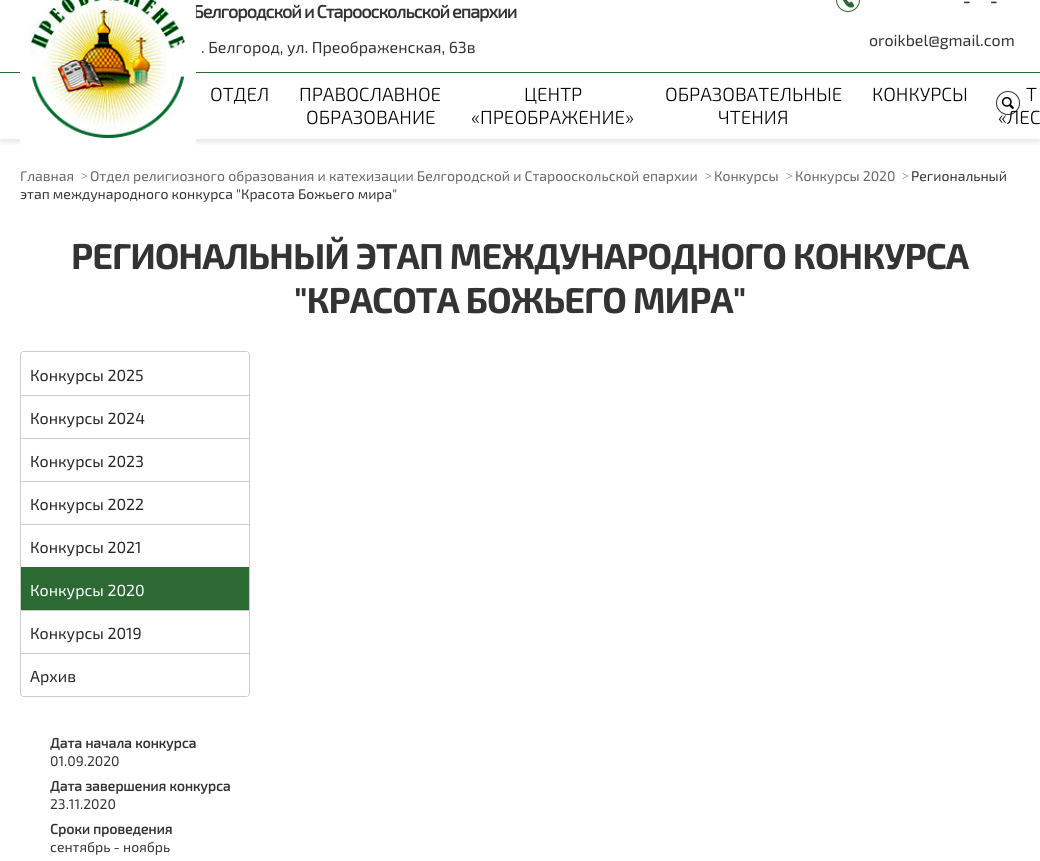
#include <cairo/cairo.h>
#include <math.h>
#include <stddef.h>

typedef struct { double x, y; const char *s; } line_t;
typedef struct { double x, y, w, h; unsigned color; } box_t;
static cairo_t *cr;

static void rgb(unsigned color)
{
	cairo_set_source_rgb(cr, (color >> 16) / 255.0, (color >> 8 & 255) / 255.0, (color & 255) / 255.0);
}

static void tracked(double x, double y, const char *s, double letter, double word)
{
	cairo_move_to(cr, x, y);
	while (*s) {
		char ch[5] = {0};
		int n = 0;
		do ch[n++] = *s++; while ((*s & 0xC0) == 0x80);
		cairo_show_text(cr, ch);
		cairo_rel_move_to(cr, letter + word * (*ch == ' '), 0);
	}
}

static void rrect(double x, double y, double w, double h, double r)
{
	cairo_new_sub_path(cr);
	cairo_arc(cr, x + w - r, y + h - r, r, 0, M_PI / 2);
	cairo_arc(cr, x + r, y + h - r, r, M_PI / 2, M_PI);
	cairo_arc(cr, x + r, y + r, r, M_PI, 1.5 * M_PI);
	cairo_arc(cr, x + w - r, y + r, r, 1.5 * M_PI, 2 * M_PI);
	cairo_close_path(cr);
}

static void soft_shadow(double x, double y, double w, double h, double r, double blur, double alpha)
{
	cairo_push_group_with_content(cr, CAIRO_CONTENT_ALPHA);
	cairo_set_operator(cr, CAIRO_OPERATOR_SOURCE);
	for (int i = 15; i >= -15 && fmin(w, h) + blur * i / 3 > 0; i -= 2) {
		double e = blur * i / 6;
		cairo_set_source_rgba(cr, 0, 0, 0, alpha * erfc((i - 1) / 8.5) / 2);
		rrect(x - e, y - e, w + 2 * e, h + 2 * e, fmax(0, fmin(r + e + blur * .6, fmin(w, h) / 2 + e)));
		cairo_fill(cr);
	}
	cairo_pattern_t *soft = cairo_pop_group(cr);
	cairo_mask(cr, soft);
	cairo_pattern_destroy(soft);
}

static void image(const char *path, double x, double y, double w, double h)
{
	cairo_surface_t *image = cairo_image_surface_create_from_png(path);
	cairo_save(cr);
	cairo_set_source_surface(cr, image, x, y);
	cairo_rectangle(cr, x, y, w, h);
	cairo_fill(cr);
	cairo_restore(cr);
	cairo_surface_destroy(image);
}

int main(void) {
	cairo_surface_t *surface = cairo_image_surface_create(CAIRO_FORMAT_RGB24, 1040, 861);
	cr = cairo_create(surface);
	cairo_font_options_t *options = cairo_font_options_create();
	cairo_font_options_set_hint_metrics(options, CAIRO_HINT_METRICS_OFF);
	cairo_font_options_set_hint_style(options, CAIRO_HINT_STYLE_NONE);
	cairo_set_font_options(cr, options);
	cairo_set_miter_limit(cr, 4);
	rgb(0xffffff);
	cairo_paint(cr);
	cairo_save(cr);
	cairo_rectangle(cr, 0, 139, 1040, 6);
	cairo_clip(cr);
	rgb(0x000000);
	soft_shadow(0, -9, 1040, 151, 0, 3, 0.1);
	cairo_restore(cr);
	image("img/2.png", 836, 0, 24, 12);
	rgb(0x2d6a33);
	cairo_rectangle(cr, 0, 72, 1040, 1);
	cairo_fill(cr);
	image("img/3.png", 996, 91, 24, 24);
	rrect(20.5, 351.5, 229, 345, 3.5);
	rgb(0xcccccc);
	cairo_set_line_width(cr, 1);
	cairo_stroke(cr);
	rgb(0xffffff);
	cairo_new_path(cr);
	cairo_move_to(cr, 24, 352);
	cairo_line_to(cr, 246, 352);
	cairo_curve_to(cr, 247.5, 352, 249, 353.5, 249, 355);
	cairo_line_to(cr, 249, 395);
	cairo_line_to(cr, 21, 395);
	cairo_line_to(cr, 21, 355);
	cairo_curve_to(cr, 21, 353.5, 22.5, 352, 24, 352);
	cairo_close_path(cr);
	cairo_fill(cr);
	{
		static const box_t items[] = {
			{21, 395, 228, 1, 0xcccccc},
			{21, 438, 228, 1, 0xcccccc},
			{21, 481, 228, 1, 0xcccccc},
			{21, 524, 228, 1, 0xcccccc},
			{21, 567, 228, 43, 0x2d6a33},
			{21, 610, 228, 1, 0xcccccc},
		};
		for (size_t i = 0; i < sizeof items / sizeof *items; i++) {
			rgb(items[i].color);
			cairo_rectangle(cr, items[i].x, items[i].y, items[i].w, items[i].h);
			cairo_fill(cr);
		}
	}
	rgb(0xffffff);
	cairo_new_path(cr);
	cairo_move_to(cr, 21, 653);
	cairo_line_to(cr, 249, 653);
	cairo_line_to(cr, 249, 693);
	cairo_curve_to(cr, 249, 694.5, 247.5, 696, 246, 696);
	cairo_line_to(cr, 24, 696);
	cairo_curve_to(cr, 22.5, 696, 21, 694.5, 21, 693);
	cairo_close_path(cr);
	cairo_fill(cr);
	rgb(0xcccccc);
	cairo_rectangle(cr, 21, 653, 228, 1);
	cairo_fill(cr);
	cairo_select_font_face(cr, "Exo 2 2", CAIRO_FONT_SLANT_NORMAL, CAIRO_FONT_WEIGHT_BOLD);
	cairo_set_font_size(cr, 18);
	rgb(0x333333);
	tracked(193, 18, "Белгородской и Старооскольской епархии", -1, 0);
	rgb(0xffffff);
	cairo_rectangle(cr, 20, 5, 176, 141);
	cairo_fill(cr);
	image("img/1.png", 30, 0, 156, 138);
	cairo_select_font_face(cr, "Exo 2", CAIRO_FONT_SLANT_NORMAL, CAIRO_FONT_WEIGHT_NORMAL);
	cairo_set_font_size(cr, 16);
	rgb(0x333333);
	cairo_move_to(cr, 201, 53);
	cairo_show_text(cr, ". Белгород, ул. Преображенская, 63в");
	cairo_select_font_face(cr, "Exo 2 SemiBold", CAIRO_FONT_SLANT_NORMAL, CAIRO_FONT_WEIGHT_NORMAL);
	cairo_set_font_size(cr, 18);
	cairo_move_to(cr, 963, 7);
	cairo_show_text(cr, "-");
	cairo_move_to(cr, 990, 7);
	cairo_show_text(cr, "-");
	cairo_select_font_face(cr, "Exo 2", CAIRO_FONT_SLANT_NORMAL, CAIRO_FONT_WEIGHT_NORMAL);
	cairo_set_font_size(cr, 16);
	cairo_move_to(cr, 869, 46);
	cairo_show_text(cr, "oroikbel@gmail.com");
	cairo_select_font_face(cr, "Exo 2 Light", CAIRO_FONT_SLANT_NORMAL, CAIRO_FONT_WEIGHT_NORMAL);
	cairo_set_font_size(cr, 19);
	rgb(0x000000);
	{
		static const line_t items[] = {
			{210, 101, "ОТДЕЛ"},
			{299, 101, "ПРАВОСЛАВНОЕ"},
			{306, 124, "ОБРАЗОВАНИЕ"},
			{524, 101, "ЦЕНТР"},
			{471, 124, "«ПРЕОБРАЖЕНИЕ»"},
			{665, 101, "ОБРАЗОВАТЕЛЬНЫЕ"},
			{718, 124, "ЧТЕНИЯ"},
			{872, 101, "КОНКУРСЫ"},
			{1026, 101, "Т"},
			{998, 124, "«ЛЕС"},
		};
		for (size_t i = 0; i < sizeof items / sizeof *items; i++) {
			cairo_move_to(cr, items[i].x, items[i].y);
			cairo_show_text(cr, items[i].s);
		}
	}
	cairo_select_font_face(cr, "Exo 2", CAIRO_FONT_SLANT_NORMAL, CAIRO_FONT_WEIGHT_NORMAL);
	cairo_set_font_size(cr, 14);
	rgb(0x666666);
	cairo_move_to(cr, 20, 181);
	cairo_show_text(cr, "Главная");
	cairo_select_font_face(cr, "Liberation Serif", CAIRO_FONT_SLANT_NORMAL, CAIRO_FONT_WEIGHT_NORMAL);
	cairo_set_font_size(cr, 12);
	cairo_move_to(cr, 81, 180);
	cairo_show_text(cr, ">");
	cairo_select_font_face(cr, "Exo 2", CAIRO_FONT_SLANT_NORMAL, CAIRO_FONT_WEIGHT_NORMAL);
	cairo_set_font_size(cr, 14);
	cairo_move_to(cr, 90, 181);
	cairo_show_text(cr, "Отдел религиозного образования и катехизации Белгородской и Старооскольской епархии");
	cairo_select_font_face(cr, "Liberation Serif", CAIRO_FONT_SLANT_NORMAL, CAIRO_FONT_WEIGHT_NORMAL);
	cairo_set_font_size(cr, 12);
	cairo_move_to(cr, 705, 180);
	cairo_show_text(cr, ">");
	cairo_select_font_face(cr, "Exo 2", CAIRO_FONT_SLANT_NORMAL, CAIRO_FONT_WEIGHT_NORMAL);
	cairo_set_font_size(cr, 14);
	cairo_move_to(cr, 714, 181);
	cairo_show_text(cr, "Конкурсы");
	cairo_select_font_face(cr, "Liberation Serif", CAIRO_FONT_SLANT_NORMAL, CAIRO_FONT_WEIGHT_NORMAL);
	cairo_set_font_size(cr, 12);
	cairo_move_to(cr, 786, 180);
	cairo_show_text(cr, ">");
	cairo_select_font_face(cr, "Exo 2", CAIRO_FONT_SLANT_NORMAL, CAIRO_FONT_WEIGHT_NORMAL);
	cairo_set_font_size(cr, 14);
	cairo_move_to(cr, 795, 181);
	cairo_show_text(cr, "Конкурсы 2020");
	cairo_select_font_face(cr, "Liberation Serif", CAIRO_FONT_SLANT_NORMAL, CAIRO_FONT_WEIGHT_NORMAL);
	cairo_set_font_size(cr, 12);
	cairo_move_to(cr, 902, 180);
	cairo_show_text(cr, ">");
	cairo_select_font_face(cr, "Exo 2", CAIRO_FONT_SLANT_NORMAL, CAIRO_FONT_WEIGHT_NORMAL);
	cairo_set_font_size(cr, 14);
	rgb(0x333333);
	cairo_move_to(cr, 911, 181);
	cairo_show_text(cr, "Региональный");
	cairo_move_to(cr, 20, 199);
	cairo_show_text(cr, "этап международного конкурса \"Красота Божьего мира\"");
	cairo_select_font_face(cr, "Exo 2", CAIRO_FONT_SLANT_NORMAL, CAIRO_FONT_WEIGHT_BOLD);
	cairo_set_font_size(cr, 36);
	tracked(71, 269, "РЕГИОНАЛЬНЫЙ ЭТАП МЕЖДУНАРОДНОГО КОНКУРСА", -1, 0);
	tracked(294, 313, "\"КРАСОТА БОЖЬЕГО МИРА\"", -1, 0);
	cairo_select_font_face(cr, "Exo 2", CAIRO_FONT_SLANT_NORMAL, CAIRO_FONT_WEIGHT_NORMAL);
	cairo_set_font_size(cr, 16);
	rgb(0x262626);
	{
		static const line_t items[] = {
			{30, 381, "Конкурсы 2025"},
			{30, 424, "Конкурсы 2024"},
			{30, 467, "Конкурсы 2023"},
			{30, 510, "Конкурсы 2022"},
			{30, 553, "Конкурсы 2021"},
		};
		for (size_t i = 0; i < sizeof items / sizeof *items; i++) {
			cairo_move_to(cr, items[i].x, items[i].y);
			cairo_show_text(cr, items[i].s);
		}
	}
	rgb(0xffffff);
	cairo_move_to(cr, 30, 596);
	cairo_show_text(cr, "Конкурсы 2020");
	rgb(0x262626);
	cairo_move_to(cr, 30, 639);
	cairo_show_text(cr, "Конкурсы 2019");
	cairo_move_to(cr, 30, 682);
	cairo_show_text(cr, "Архив");
	cairo_select_font_face(cr, "Exo 2 2", CAIRO_FONT_SLANT_NORMAL, CAIRO_FONT_WEIGHT_BOLD);
	cairo_set_font_size(cr, 14);
	rgb(0x333333);
	cairo_move_to(cr, 50, 748);
	cairo_show_text(cr, "Дата начала конкурса");
	cairo_select_font_face(cr, "Exo 2", CAIRO_FONT_SLANT_NORMAL, CAIRO_FONT_WEIGHT_NORMAL);
	cairo_move_to(cr, 50, 766);
	cairo_show_text(cr, "01.09.2020");
	cairo_select_font_face(cr, "Exo 2 2", CAIRO_FONT_SLANT_NORMAL, CAIRO_FONT_WEIGHT_BOLD);
	cairo_move_to(cr, 50, 791);
	cairo_show_text(cr, "Дата завершения конкурса");
	cairo_select_font_face(cr, "Exo 2", CAIRO_FONT_SLANT_NORMAL, CAIRO_FONT_WEIGHT_NORMAL);
	cairo_move_to(cr, 50, 809);
	cairo_show_text(cr, "23.11.2020");
	cairo_select_font_face(cr, "Exo 2 2", CAIRO_FONT_SLANT_NORMAL, CAIRO_FONT_WEIGHT_BOLD);
	cairo_move_to(cr, 50, 834);
	cairo_show_text(cr, "Сроки проведения");
	cairo_select_font_face(cr, "Exo 2", CAIRO_FONT_SLANT_NORMAL, CAIRO_FONT_WEIGHT_NORMAL);
	cairo_move_to(cr, 50, 852);
	cairo_show_text(cr, "сентябрь - ноябрь");
	cairo_surface_write_to_png(surface, "page.png");
	cairo_font_options_destroy(options);
	cairo_destroy(cr);
	cairo_surface_destroy(surface);
	return 0;
}
